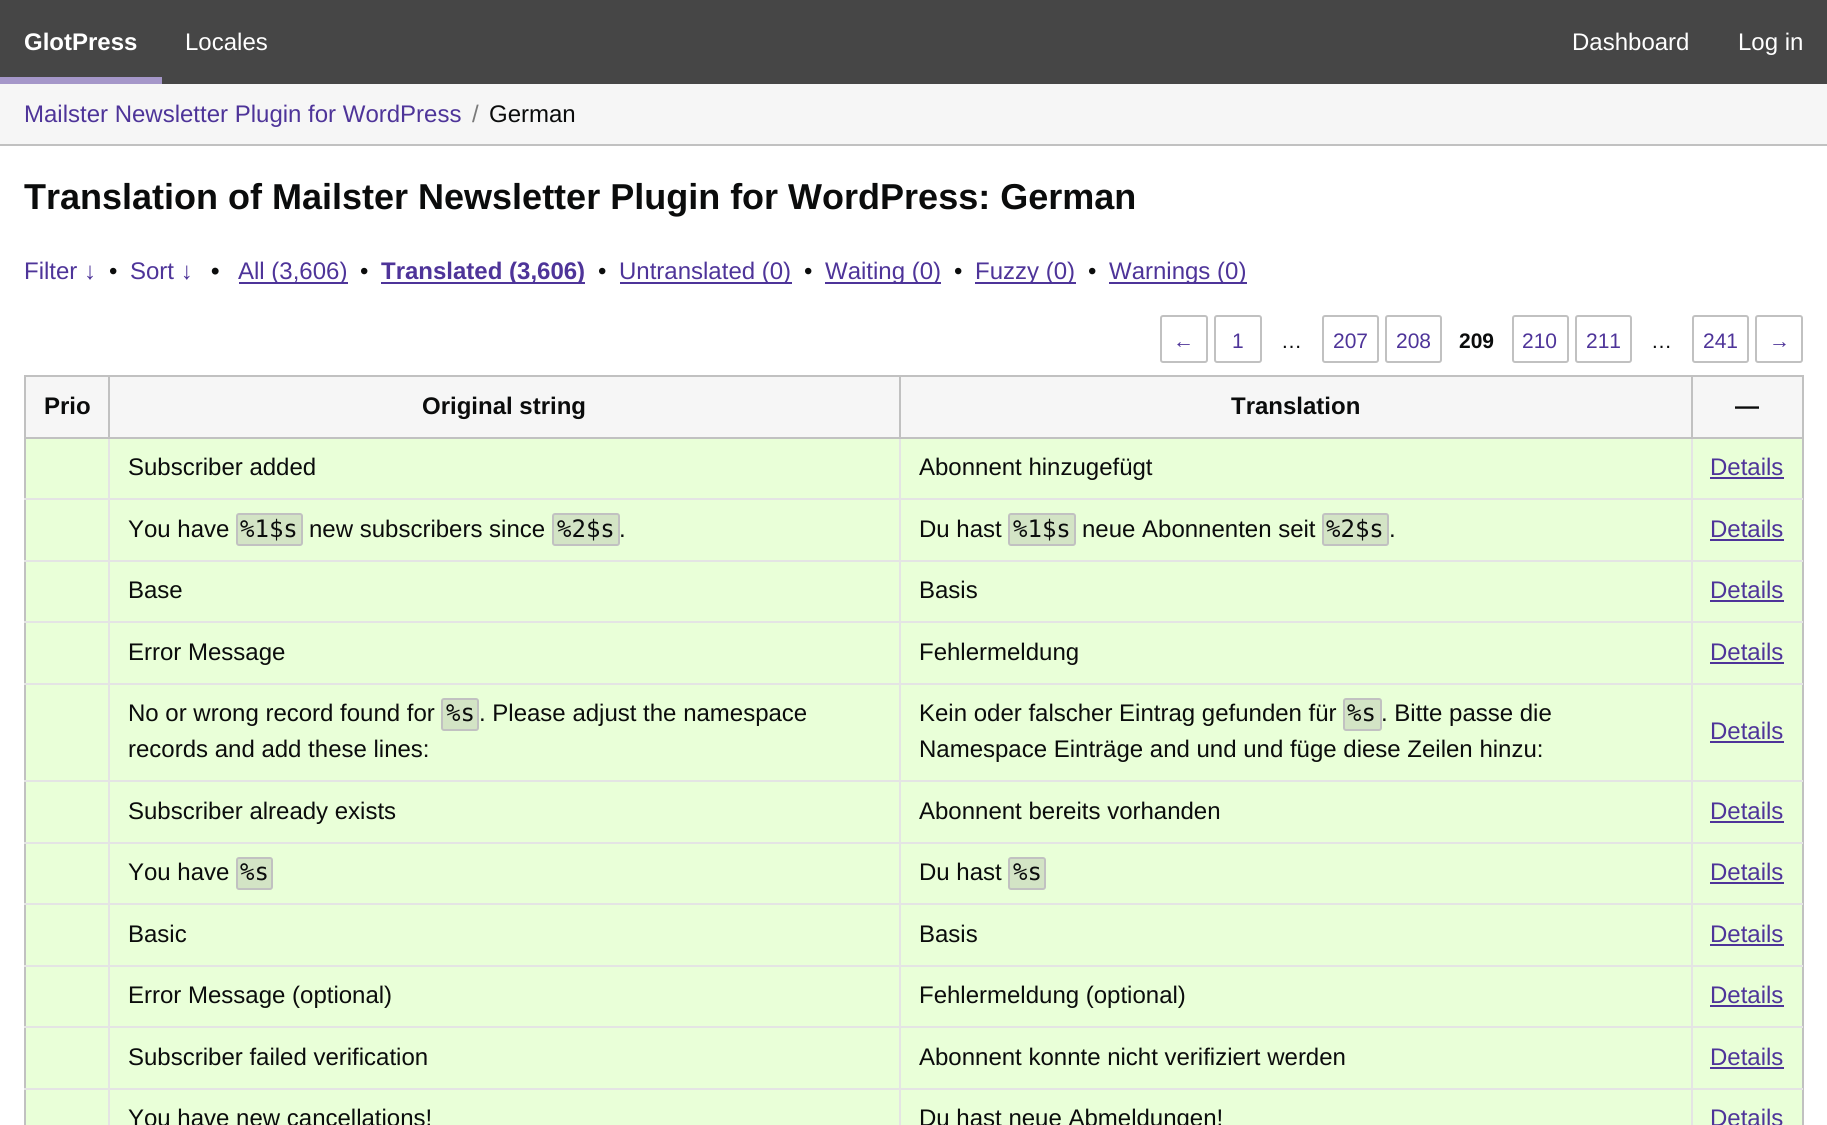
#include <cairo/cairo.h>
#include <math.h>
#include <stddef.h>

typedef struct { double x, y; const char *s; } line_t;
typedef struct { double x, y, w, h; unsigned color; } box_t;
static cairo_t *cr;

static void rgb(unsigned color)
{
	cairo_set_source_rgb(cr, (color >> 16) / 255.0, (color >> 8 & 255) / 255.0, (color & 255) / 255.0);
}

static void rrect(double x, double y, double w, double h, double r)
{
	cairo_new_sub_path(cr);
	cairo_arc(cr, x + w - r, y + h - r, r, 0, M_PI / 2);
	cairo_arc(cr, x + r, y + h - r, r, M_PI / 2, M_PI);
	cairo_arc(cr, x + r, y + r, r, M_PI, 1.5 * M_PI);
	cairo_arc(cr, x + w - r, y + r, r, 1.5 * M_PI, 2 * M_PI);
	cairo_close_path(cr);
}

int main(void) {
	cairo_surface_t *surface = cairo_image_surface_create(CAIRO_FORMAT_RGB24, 1827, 1125);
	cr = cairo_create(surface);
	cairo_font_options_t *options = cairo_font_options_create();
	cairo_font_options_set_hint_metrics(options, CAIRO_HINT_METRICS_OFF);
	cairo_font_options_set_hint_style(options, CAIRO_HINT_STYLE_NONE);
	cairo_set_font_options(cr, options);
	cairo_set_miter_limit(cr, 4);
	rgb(0xffffff);
	cairo_paint(cr);
	{
		static const box_t items[] = {
			{0, 0, 1827, 84, 0x464646},
			{0, 77, 162, 7, 0xa597c9},
			{0, 84, 1827, 60, 0xf6f6f6},
			{0, 144, 1827, 2, 0xc1c1c1},
			{239, 282, 109, 2, 0x4e3499},
			{381, 282, 204, 2, 0x4e3499},
			{620, 282, 172, 2, 0x4e3499},
			{825, 282, 116, 2, 0x4e3499},
			{975, 282, 101, 2, 0x4e3499},
			{1109, 282, 138, 2, 0x4e3499},
		};
		for (size_t i = 0; i < sizeof items / sizeof *items; i++) {
			rgb(items[i].color);
			cairo_rectangle(cr, items[i].x, items[i].y, items[i].w, items[i].h);
			cairo_fill(cr);
		}
	}
	rrect(1161, 316, 46, 46, 2);
	rgb(0xc1c1c1);
	cairo_stroke(cr);
	rrect(1215, 316, 46, 46, 2);
	cairo_stroke(cr);
	rrect(1323, 316, 55, 46, 2);
	cairo_stroke(cr);
	rrect(1386, 316, 55, 46, 2);
	cairo_stroke(cr);
	rrect(1513, 316, 55, 46, 2);
	cairo_stroke(cr);
	rrect(1576, 316, 55, 46, 2);
	cairo_stroke(cr);
	rrect(1693, 316, 55, 46, 2);
	cairo_stroke(cr);
	rrect(1756, 316, 46, 46, 2);
	cairo_stroke(cr);
	{
		static const box_t items[] = {
			{24, 375, 1779, 2, 0xc1c1c1},
			{1802, 375, 2, 750, 0xc1c1c1},
			{24, 375, 2, 750, 0xc1c1c1},
			{26, 377, 82, 60, 0xf6f6f6},
			{26, 439, 1776, 59, 0xe9ffd8},
			{1691, 498, 112, 2, 0xe4e4e4},
			{26, 500, 1776, 60, 0xe9ffd8},
			{1691, 560, 112, 2, 0xe4e4e4},
			{26, 562, 1776, 59, 0xe9ffd8},
			{1691, 621, 112, 2, 0xe4e4e4},
			{26, 623, 1776, 60, 0xe9ffd8},
			{1691, 683, 112, 2, 0xe4e4e4},
			{26, 685, 1776, 95, 0xe9ffd8},
			{1691, 780, 112, 2, 0xe4e4e4},
			{26, 782, 1776, 60, 0xe9ffd8},
			{1691, 842, 112, 2, 0xe4e4e4},
			{26, 844, 1776, 59, 0xe9ffd8},
			{1691, 903, 112, 2, 0xe4e4e4},
			{26, 905, 1776, 60, 0xe9ffd8},
			{1691, 965, 112, 2, 0xe4e4e4},
			{26, 967, 1776, 59, 0xe9ffd8},
			{1691, 1026, 112, 2, 0xe4e4e4},
			{26, 1028, 1776, 60, 0xe9ffd8},
			{1691, 1088, 112, 2, 0xe4e4e4},
			{26, 1090, 1776, 35, 0xe9ffd8},
			{1691, 1088, 2, 37, 0xe4e4e4},
			{899, 1088, 793, 2, 0xe4e4e4},
			{1691, 1026, 2, 63, 0xe4e4e4},
			{899, 1026, 793, 2, 0xe4e4e4},
			{1691, 965, 2, 63, 0xe4e4e4},
			{899, 965, 793, 2, 0xe4e4e4},
			{1691, 903, 2, 63, 0xe4e4e4},
			{899, 903, 793, 2, 0xe4e4e4},
			{1691, 842, 2, 63, 0xe4e4e4},
			{899, 842, 793, 2, 0xe4e4e4},
			{1691, 780, 2, 63, 0xe4e4e4},
			{899, 780, 793, 2, 0xe4e4e4},
			{1691, 683, 2, 99, 0xe4e4e4},
			{899, 683, 793, 2, 0xe4e4e4},
			{1691, 621, 2, 63, 0xe4e4e4},
			{899, 621, 793, 2, 0xe4e4e4},
			{1691, 560, 2, 63, 0xe4e4e4},
			{899, 560, 793, 2, 0xe4e4e4},
			{1691, 498, 2, 63, 0xe4e4e4},
			{899, 498, 793, 2, 0xe4e4e4},
			{1691, 437, 2, 63, 0xe4e4e4},
			{1691, 437, 112, 2, 0xc1c1c1},
			{1691, 375, 2, 63, 0xc1c1c1},
			{899, 1088, 2, 37, 0xe4e4e4},
			{108, 1088, 792, 2, 0xe4e4e4},
			{899, 1026, 2, 63, 0xe4e4e4},
			{108, 1026, 792, 2, 0xe4e4e4},
			{899, 965, 2, 63, 0xe4e4e4},
			{108, 965, 792, 2, 0xe4e4e4},
			{899, 903, 2, 63, 0xe4e4e4},
			{108, 903, 792, 2, 0xe4e4e4},
			{899, 842, 2, 63, 0xe4e4e4},
			{108, 842, 792, 2, 0xe4e4e4},
			{899, 780, 2, 63, 0xe4e4e4},
			{108, 780, 792, 2, 0xe4e4e4},
			{899, 683, 2, 99, 0xe4e4e4},
			{108, 683, 792, 2, 0xe4e4e4},
			{899, 621, 2, 63, 0xe4e4e4},
			{108, 621, 792, 2, 0xe4e4e4},
			{899, 560, 2, 63, 0xe4e4e4},
			{108, 560, 792, 2, 0xe4e4e4},
			{899, 498, 2, 63, 0xe4e4e4},
			{108, 498, 792, 2, 0xe4e4e4},
			{899, 437, 2, 63, 0xe4e4e4},
			{899, 437, 793, 2, 0xc1c1c1},
			{899, 375, 2, 63, 0xc1c1c1},
			{108, 1088, 2, 37, 0xe4e4e4},
			{24, 1088, 86, 2, 0xe4e4e4},
			{108, 1026, 2, 63, 0xe4e4e4},
			{24, 1026, 86, 2, 0xe4e4e4},
			{108, 965, 2, 63, 0xe4e4e4},
			{24, 965, 86, 2, 0xe4e4e4},
			{108, 903, 2, 63, 0xe4e4e4},
			{24, 903, 86, 2, 0xe4e4e4},
			{108, 842, 2, 63, 0xe4e4e4},
			{24, 842, 86, 2, 0xe4e4e4},
			{108, 780, 2, 63, 0xe4e4e4},
			{24, 780, 86, 2, 0xe4e4e4},
			{108, 683, 2, 99, 0xe4e4e4},
			{24, 683, 86, 2, 0xe4e4e4},
			{108, 621, 2, 63, 0xe4e4e4},
			{24, 621, 86, 2, 0xe4e4e4},
			{108, 560, 2, 63, 0xe4e4e4},
			{24, 560, 86, 2, 0xe4e4e4},
			{108, 498, 2, 63, 0xe4e4e4},
			{24, 498, 86, 2, 0xe4e4e4},
			{108, 437, 2, 63, 0xe4e4e4},
			{108, 437, 792, 2, 0xc1c1c1},
			{108, 375, 2, 63, 0xc1c1c1},
			{24, 437, 86, 2, 0xc1c1c1},
			{110, 377, 789, 60, 0xf6f6f6},
			{901, 377, 790, 60, 0xf6f6f6},
			{1693, 377, 109, 60, 0xf6f6f6},
			{1710, 477, 74, 2, 0x4e3499},
		};
		for (size_t i = 0; i < sizeof items / sizeof *items; i++) {
			rgb(items[i].color);
			cairo_rectangle(cr, items[i].x, items[i].y, items[i].w, items[i].h);
			cairo_fill(cr);
		}
	}
	rgb(0xd3e4c5);
	rrect(237, 514, 65, 31, 2);
	cairo_fill_preserve(cr);
	rgb(0xc1c1c1);
	cairo_stroke(cr);
	rgb(0xd3e4c5);
	rrect(553, 514, 66, 31, 2);
	cairo_fill_preserve(cr);
	rgb(0xc1c1c1);
	cairo_stroke(cr);
	rgb(0xd3e4c5);
	rrect(1009, 514, 66, 31, 2);
	cairo_fill_preserve(cr);
	rgb(0xc1c1c1);
	cairo_stroke(cr);
	rgb(0xd3e4c5);
	rrect(1323, 514, 65, 31, 2);
	cairo_fill_preserve(cr);
	rgb(0xc1c1c1);
	cairo_stroke(cr);
	{
		static const box_t items[] = {
			{1710, 539, 74, 2, 0x4e3499},
			{1710, 600, 74, 2, 0x4e3499},
			{1710, 662, 74, 2, 0x4e3499},
		};
		for (size_t i = 0; i < sizeof items / sizeof *items; i++) {
			rgb(items[i].color);
			cairo_rectangle(cr, items[i].x, items[i].y, items[i].w, items[i].h);
			cairo_fill(cr);
		}
	}
	rgb(0xd3e4c5);
	rrect(442, 699, 36, 31, 2);
	cairo_fill_preserve(cr);
	rgb(0xc1c1c1);
	cairo_stroke(cr);
	rgb(0xd3e4c5);
	rrect(1344, 699, 37, 31, 2);
	cairo_fill_preserve(cr);
	rgb(0xc1c1c1);
	cairo_stroke(cr);
	rgb(0x4e3499);
	cairo_rectangle(cr, 1710, 741, 74, 2);
	cairo_fill(cr);
	cairo_rectangle(cr, 1710, 821, 74, 2);
	cairo_fill(cr);
	rgb(0xd3e4c5);
	rrect(237, 858, 35, 31, 2);
	cairo_fill_preserve(cr);
	rgb(0xc1c1c1);
	cairo_stroke(cr);
	rgb(0xd3e4c5);
	rrect(1009, 858, 36, 31, 2);
	cairo_fill_preserve(cr);
	rgb(0xc1c1c1);
	cairo_stroke(cr);
	{
		static const box_t items[] = {
			{1710, 882, 74, 2, 0x4e3499},
			{1710, 944, 74, 2, 0x4e3499},
			{1710, 1005, 74, 2, 0x4e3499},
			{1710, 1067, 74, 2, 0x4e3499},
		};
		for (size_t i = 0; i < sizeof items / sizeof *items; i++) {
			rgb(items[i].color);
			cairo_rectangle(cr, items[i].x, items[i].y, items[i].w, items[i].h);
			cairo_fill(cr);
		}
	}
	cairo_select_font_face(cr, "Liberation Sans", CAIRO_FONT_SLANT_NORMAL, CAIRO_FONT_WEIGHT_BOLD);
	cairo_set_font_size(cr, 24);
	rgb(0xffffff);
	cairo_move_to(cr, 24, 50);
	cairo_show_text(cr, "GlotPress");
	cairo_select_font_face(cr, "Liberation Sans", CAIRO_FONT_SLANT_NORMAL, CAIRO_FONT_WEIGHT_NORMAL);
	{
		static const line_t items[] = {
			{185, 50, "Locales"},
			{1572, 50, "Dashboard"},
			{1738, 50, "Log in"},
		};
		for (size_t i = 0; i < sizeof items / sizeof *items; i++) {
			cairo_move_to(cr, items[i].x, items[i].y);
			cairo_show_text(cr, items[i].s);
		}
	}
	rgb(0x4e3499);
	cairo_move_to(cr, 24, 122);
	cairo_show_text(cr, "Mailster Newsletter Plugin for WordPress");
	rgb(0x7a7a7a);
	cairo_move_to(cr, 472, 122);
	cairo_show_text(cr, "/");
	rgb(0x0b0c0c);
	cairo_move_to(cr, 489, 122);
	cairo_show_text(cr, "German");
	cairo_select_font_face(cr, "Liberation Sans", CAIRO_FONT_SLANT_NORMAL, CAIRO_FONT_WEIGHT_BOLD);
	cairo_set_font_size(cr, 36);
	cairo_move_to(cr, 24, 209);
	cairo_show_text(cr, "Translation of Mailster Newsletter Plugin for WordPress: German");
	cairo_select_font_face(cr, "Liberation Sans", CAIRO_FONT_SLANT_NORMAL, CAIRO_FONT_WEIGHT_NORMAL);
	cairo_set_font_size(cr, 24);
	rgb(0x4e3499);
	cairo_move_to(cr, 24, 279);
	cairo_show_text(cr, "Filter ↓");
	rgb(0x0b0c0c);
	cairo_move_to(cr, 109, 279);
	cairo_show_text(cr, "•");
	rgb(0x4e3499);
	cairo_move_to(cr, 130, 279);
	cairo_show_text(cr, "Sort ↓");
	cairo_select_font_face(cr, "Liberation Sans", CAIRO_FONT_SLANT_NORMAL, CAIRO_FONT_WEIGHT_BOLD);
	rgb(0x0b0c0c);
	cairo_move_to(cr, 211, 279);
	cairo_show_text(cr, "•");
	cairo_select_font_face(cr, "Liberation Sans", CAIRO_FONT_SLANT_NORMAL, CAIRO_FONT_WEIGHT_NORMAL);
	rgb(0x4e3499);
	cairo_move_to(cr, 238, 279);
	cairo_show_text(cr, "All (3,606)");
	rgb(0x0b0c0c);
	cairo_move_to(cr, 360, 279);
	cairo_show_text(cr, "•");
	cairo_select_font_face(cr, "Liberation Sans", CAIRO_FONT_SLANT_NORMAL, CAIRO_FONT_WEIGHT_BOLD);
	rgb(0x4e3499);
	cairo_move_to(cr, 381, 279);
	cairo_show_text(cr, "Translated (3,606)");
	cairo_select_font_face(cr, "Liberation Sans", CAIRO_FONT_SLANT_NORMAL, CAIRO_FONT_WEIGHT_NORMAL);
	rgb(0x0b0c0c);
	cairo_move_to(cr, 598, 279);
	cairo_show_text(cr, "•");
	rgb(0x4e3499);
	cairo_move_to(cr, 619, 279);
	cairo_show_text(cr, "Untranslated (0)");
	rgb(0x0b0c0c);
	cairo_move_to(cr, 804, 279);
	cairo_show_text(cr, "•");
	rgb(0x4e3499);
	cairo_move_to(cr, 825, 279);
	cairo_show_text(cr, "Waiting (0)");
	rgb(0x0b0c0c);
	cairo_move_to(cr, 954, 279);
	cairo_show_text(cr, "•");
	rgb(0x4e3499);
	cairo_move_to(cr, 975, 279);
	cairo_show_text(cr, "Fuzzy (0)");
	rgb(0x0b0c0c);
	cairo_move_to(cr, 1088, 279);
	cairo_show_text(cr, "•");
	rgb(0x4e3499);
	cairo_move_to(cr, 1109, 279);
	cairo_show_text(cr, "Warnings (0)");
	cairo_set_font_size(cr, 21);
	cairo_move_to(cr, 1173, 348);
	cairo_show_text(cr, "←");
	cairo_move_to(cr, 1232, 348);
	cairo_show_text(cr, "1");
	rgb(0x0b0c0c);
	cairo_move_to(cr, 1281, 348);
	cairo_show_text(cr, "…");
	rgb(0x4e3499);
	cairo_move_to(cr, 1333, 348);
	cairo_show_text(cr, "207");
	cairo_move_to(cr, 1396, 348);
	cairo_show_text(cr, "208");
	cairo_select_font_face(cr, "Liberation Sans", CAIRO_FONT_SLANT_NORMAL, CAIRO_FONT_WEIGHT_BOLD);
	rgb(0x0b0c0c);
	cairo_move_to(cr, 1459, 348);
	cairo_show_text(cr, "209");
	cairo_select_font_face(cr, "Liberation Sans", CAIRO_FONT_SLANT_NORMAL, CAIRO_FONT_WEIGHT_NORMAL);
	rgb(0x4e3499);
	cairo_move_to(cr, 1522, 348);
	cairo_show_text(cr, "210");
	cairo_move_to(cr, 1586, 348);
	cairo_show_text(cr, "211");
	rgb(0x0b0c0c);
	cairo_move_to(cr, 1651, 348);
	cairo_show_text(cr, "…");
	rgb(0x4e3499);
	cairo_move_to(cr, 1703, 348);
	cairo_show_text(cr, "241");
	cairo_move_to(cr, 1769, 348);
	cairo_show_text(cr, "→");
	cairo_select_font_face(cr, "Liberation Sans", CAIRO_FONT_SLANT_NORMAL, CAIRO_FONT_WEIGHT_BOLD);
	cairo_set_font_size(cr, 24);
	rgb(0x0b0c0c);
	{
		static const line_t items[] = {
			{44, 414, "Prio"},
			{422, 414, "Original string"},
			{1231, 414, "Translation"},
			{1735, 414, "—"},
		};
		for (size_t i = 0; i < sizeof items / sizeof *items; i++) {
			cairo_move_to(cr, items[i].x, items[i].y);
			cairo_show_text(cr, items[i].s);
		}
	}
	cairo_select_font_face(cr, "Liberation Sans", CAIRO_FONT_SLANT_NORMAL, CAIRO_FONT_WEIGHT_NORMAL);
	cairo_move_to(cr, 128, 475);
	cairo_show_text(cr, "Subscriber added");
	cairo_move_to(cr, 919, 475);
	cairo_show_text(cr, "Abonnent hinzugefügt");
	rgb(0x4e3499);
	cairo_move_to(cr, 1710, 475);
	cairo_show_text(cr, "Details");
	rgb(0x0b0c0c);
	cairo_move_to(cr, 128, 537);
	cairo_show_text(cr, "You have");
	cairo_select_font_face(cr, "DejaVu Sans Mono", CAIRO_FONT_SLANT_NORMAL, CAIRO_FONT_WEIGHT_NORMAL);
	cairo_move_to(cr, 240, 537);
	cairo_show_text(cr, "%1$s");
	cairo_select_font_face(cr, "Liberation Sans", CAIRO_FONT_SLANT_NORMAL, CAIRO_FONT_WEIGHT_NORMAL);
	cairo_move_to(cr, 309, 537);
	cairo_show_text(cr, "new subscribers since");
	cairo_select_font_face(cr, "DejaVu Sans Mono", CAIRO_FONT_SLANT_NORMAL, CAIRO_FONT_WEIGHT_NORMAL);
	cairo_move_to(cr, 557, 537);
	cairo_show_text(cr, "%2$s");
	cairo_select_font_face(cr, "Liberation Sans", CAIRO_FONT_SLANT_NORMAL, CAIRO_FONT_WEIGHT_NORMAL);
	cairo_move_to(cr, 619, 537);
	cairo_show_text(cr, ".");
	cairo_move_to(cr, 919, 537);
	cairo_show_text(cr, "Du hast");
	cairo_select_font_face(cr, "DejaVu Sans Mono", CAIRO_FONT_SLANT_NORMAL, CAIRO_FONT_WEIGHT_NORMAL);
	cairo_move_to(cr, 1013, 537);
	cairo_show_text(cr, "%1$s");
	cairo_select_font_face(cr, "Liberation Sans", CAIRO_FONT_SLANT_NORMAL, CAIRO_FONT_WEIGHT_NORMAL);
	cairo_move_to(cr, 1082, 537);
	cairo_show_text(cr, "neue Abonnenten seit");
	cairo_select_font_face(cr, "DejaVu Sans Mono", CAIRO_FONT_SLANT_NORMAL, CAIRO_FONT_WEIGHT_NORMAL);
	cairo_move_to(cr, 1326, 537);
	cairo_show_text(cr, "%2$s");
	cairo_select_font_face(cr, "Liberation Sans", CAIRO_FONT_SLANT_NORMAL, CAIRO_FONT_WEIGHT_NORMAL);
	cairo_move_to(cr, 1389, 537);
	cairo_show_text(cr, ".");
	rgb(0x4e3499);
	cairo_move_to(cr, 1710, 537);
	cairo_show_text(cr, "Details");
	rgb(0x0b0c0c);
	cairo_move_to(cr, 128, 598);
	cairo_show_text(cr, "Base");
	cairo_move_to(cr, 919, 598);
	cairo_show_text(cr, "Basis");
	rgb(0x4e3499);
	cairo_move_to(cr, 1710, 598);
	cairo_show_text(cr, "Details");
	rgb(0x0b0c0c);
	cairo_move_to(cr, 128, 660);
	cairo_show_text(cr, "Error Message");
	cairo_move_to(cr, 919, 660);
	cairo_show_text(cr, "Fehlermeldung");
	rgb(0x4e3499);
	cairo_move_to(cr, 1710, 660);
	cairo_show_text(cr, "Details");
	rgb(0x0b0c0c);
	cairo_move_to(cr, 128, 721);
	cairo_show_text(cr, "No or wrong record found for");
	cairo_select_font_face(cr, "DejaVu Sans Mono", CAIRO_FONT_SLANT_NORMAL, CAIRO_FONT_WEIGHT_NORMAL);
	cairo_move_to(cr, 446, 721);
	cairo_show_text(cr, "%s");
	cairo_select_font_face(cr, "Liberation Sans", CAIRO_FONT_SLANT_NORMAL, CAIRO_FONT_WEIGHT_NORMAL);
	{
		static const line_t items[] = {
			{479, 721, ". Please adjust the namespace"},
			{128, 757, "records and add these lines:"},
			{919, 721, "Kein oder falscher Eintrag gefunden für"},
		};
		for (size_t i = 0; i < sizeof items / sizeof *items; i++) {
			cairo_move_to(cr, items[i].x, items[i].y);
			cairo_show_text(cr, items[i].s);
		}
	}
	cairo_select_font_face(cr, "DejaVu Sans Mono", CAIRO_FONT_SLANT_NORMAL, CAIRO_FONT_WEIGHT_NORMAL);
	cairo_move_to(cr, 1347, 721);
	cairo_show_text(cr, "%s");
	cairo_select_font_face(cr, "Liberation Sans", CAIRO_FONT_SLANT_NORMAL, CAIRO_FONT_WEIGHT_NORMAL);
	cairo_move_to(cr, 1381, 721);
	cairo_show_text(cr, ". Bitte passe die");
	cairo_move_to(cr, 919, 757);
	cairo_show_text(cr, "Namespace Einträge and und und füge diese Zeilen hinzu:");
	rgb(0x4e3499);
	cairo_move_to(cr, 1710, 739);
	cairo_show_text(cr, "Details");
	rgb(0x0b0c0c);
	cairo_move_to(cr, 128, 819);
	cairo_show_text(cr, "Subscriber already exists");
	cairo_move_to(cr, 919, 819);
	cairo_show_text(cr, "Abonnent bereits vorhanden");
	rgb(0x4e3499);
	cairo_move_to(cr, 1710, 819);
	cairo_show_text(cr, "Details");
	rgb(0x0b0c0c);
	cairo_move_to(cr, 128, 880);
	cairo_show_text(cr, "You have");
	cairo_select_font_face(cr, "DejaVu Sans Mono", CAIRO_FONT_SLANT_NORMAL, CAIRO_FONT_WEIGHT_NORMAL);
	cairo_move_to(cr, 240, 880);
	cairo_show_text(cr, "%s");
	cairo_select_font_face(cr, "Liberation Sans", CAIRO_FONT_SLANT_NORMAL, CAIRO_FONT_WEIGHT_NORMAL);
	cairo_move_to(cr, 919, 880);
	cairo_show_text(cr, "Du hast");
	cairo_select_font_face(cr, "DejaVu Sans Mono", CAIRO_FONT_SLANT_NORMAL, CAIRO_FONT_WEIGHT_NORMAL);
	cairo_move_to(cr, 1013, 880);
	cairo_show_text(cr, "%s");
	cairo_select_font_face(cr, "Liberation Sans", CAIRO_FONT_SLANT_NORMAL, CAIRO_FONT_WEIGHT_NORMAL);
	rgb(0x4e3499);
	cairo_move_to(cr, 1710, 880);
	cairo_show_text(cr, "Details");
	rgb(0x0b0c0c);
	cairo_move_to(cr, 128, 942);
	cairo_show_text(cr, "Basic");
	cairo_move_to(cr, 919, 942);
	cairo_show_text(cr, "Basis");
	rgb(0x4e3499);
	cairo_move_to(cr, 1710, 942);
	cairo_show_text(cr, "Details");
	rgb(0x0b0c0c);
	cairo_move_to(cr, 128, 1003);
	cairo_show_text(cr, "Error Message (optional)");
	cairo_move_to(cr, 919, 1003);
	cairo_show_text(cr, "Fehlermeldung (optional)");
	rgb(0x4e3499);
	cairo_move_to(cr, 1710, 1003);
	cairo_show_text(cr, "Details");
	rgb(0x0b0c0c);
	cairo_move_to(cr, 128, 1065);
	cairo_show_text(cr, "Subscriber failed verification");
	cairo_move_to(cr, 919, 1065);
	cairo_show_text(cr, "Abonnent konnte nicht verifiziert werden");
	rgb(0x4e3499);
	cairo_move_to(cr, 1710, 1065);
	cairo_show_text(cr, "Details");
	rgb(0x0b0c0c);
	cairo_move_to(cr, 128, 1126);
	cairo_show_text(cr, "You have new cancellations!");
	cairo_move_to(cr, 919, 1126);
	cairo_show_text(cr, "Du hast neue Abmeldungen!");
	rgb(0x4e3499);
	cairo_move_to(cr, 1710, 1126);
	cairo_show_text(cr, "Details");
	cairo_surface_write_to_png(surface, "page.png");
	cairo_font_options_destroy(options);
	cairo_destroy(cr);
	cairo_surface_destroy(surface);
	return 0;
}
